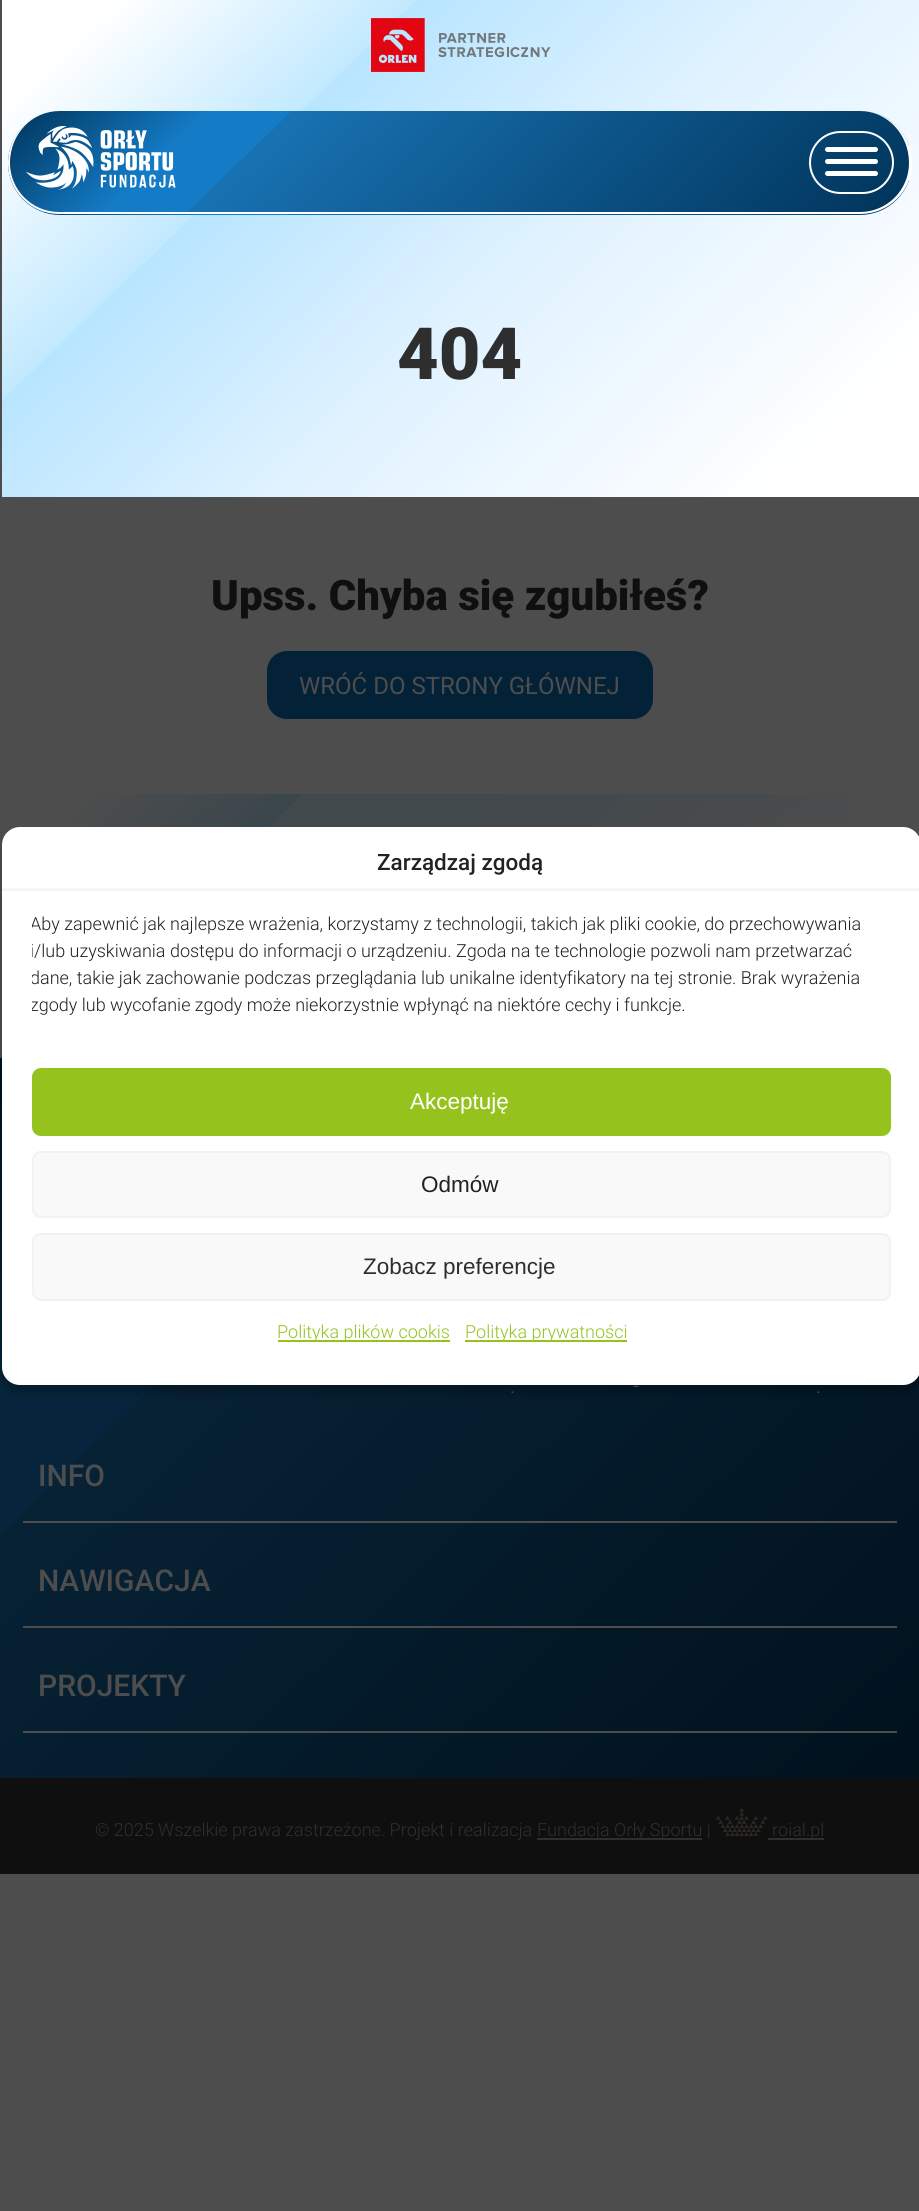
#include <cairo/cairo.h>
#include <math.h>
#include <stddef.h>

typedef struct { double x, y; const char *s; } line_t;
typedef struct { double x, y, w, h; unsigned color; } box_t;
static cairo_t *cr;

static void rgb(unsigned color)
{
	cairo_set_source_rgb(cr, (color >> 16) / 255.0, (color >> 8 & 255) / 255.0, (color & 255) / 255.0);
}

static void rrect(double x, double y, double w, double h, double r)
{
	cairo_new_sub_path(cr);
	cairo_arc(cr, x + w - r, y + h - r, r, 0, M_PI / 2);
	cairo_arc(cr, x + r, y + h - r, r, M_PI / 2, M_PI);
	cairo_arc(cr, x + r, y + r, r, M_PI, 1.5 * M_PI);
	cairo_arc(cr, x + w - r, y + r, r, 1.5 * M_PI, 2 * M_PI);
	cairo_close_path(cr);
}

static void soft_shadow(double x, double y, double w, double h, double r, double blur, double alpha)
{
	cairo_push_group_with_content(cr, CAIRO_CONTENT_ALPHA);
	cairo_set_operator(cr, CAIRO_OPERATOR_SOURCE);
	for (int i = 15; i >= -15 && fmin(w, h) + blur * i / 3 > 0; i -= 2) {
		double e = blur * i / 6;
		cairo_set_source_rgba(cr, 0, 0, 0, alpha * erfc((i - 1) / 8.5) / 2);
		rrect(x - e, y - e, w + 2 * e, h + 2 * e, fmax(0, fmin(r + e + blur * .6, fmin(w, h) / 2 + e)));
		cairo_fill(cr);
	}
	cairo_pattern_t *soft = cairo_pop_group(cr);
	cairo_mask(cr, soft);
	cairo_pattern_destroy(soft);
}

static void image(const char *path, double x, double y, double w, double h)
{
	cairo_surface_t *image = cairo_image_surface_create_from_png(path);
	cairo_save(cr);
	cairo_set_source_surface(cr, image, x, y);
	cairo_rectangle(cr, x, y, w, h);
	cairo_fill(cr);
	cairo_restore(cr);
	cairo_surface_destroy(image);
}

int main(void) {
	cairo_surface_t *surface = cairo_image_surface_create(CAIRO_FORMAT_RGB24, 919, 2211);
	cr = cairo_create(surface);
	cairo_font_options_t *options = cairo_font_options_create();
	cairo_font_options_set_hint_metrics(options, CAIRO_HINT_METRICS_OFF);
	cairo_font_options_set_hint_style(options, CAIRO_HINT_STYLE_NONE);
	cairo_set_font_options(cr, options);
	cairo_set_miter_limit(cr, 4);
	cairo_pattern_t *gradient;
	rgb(0x4d4d4d);
	cairo_paint(cr);
	gradient = cairo_pattern_create_linear(115, -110, 806, 606);
	cairo_pattern_add_color_stop_rgba(gradient, 0.08, 1, 1, 1, 1);
	cairo_pattern_add_color_stop_rgba(gradient, 0.29, 0.761, 0.914, 1, 1);
	cairo_pattern_add_color_stop_rgba(gradient, 0.29, 0.722, 0.898, 1, 1);
	cairo_pattern_add_color_stop_rgba(gradient, 0.55, 0.878, 0.949, 1, 1);
	cairo_pattern_add_color_stop_rgba(gradient, 0.9, 1, 1, 1, 1);
	cairo_set_source(cr, gradient);
	cairo_pattern_destroy(gradient);
	cairo_rectangle(cr, 2, 0, 917, 497);
	cairo_fill(cr);
	image("img/1.png", 371, 18, 180, 54);
	cairo_save(cr);
	rrect(8, 111, 904, 104, 52);
	cairo_clip(cr);
	gradient = cairo_pattern_create_linear(-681, -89, -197, 412);
	cairo_pattern_add_color_stop_rgba(gradient, 0, 0, 0.204, 0.353, 1);
	cairo_pattern_add_color_stop_rgba(gradient, 0.2, 0.078, 0.486, 0.78, 1);
	cairo_pattern_add_color_stop_rgba(gradient, 0.28, 0.078, 0.486, 0.78, 1);
	cairo_pattern_add_color_stop_rgba(gradient, 0.28, 0.149, 0.553, 0.843, 1);
	cairo_pattern_add_color_stop_rgba(gradient, 0.28, 0.094, 0.447, 0.698, 1);
	cairo_pattern_add_color_stop_rgba(gradient, 1, 0, 0.204, 0.353, 1);
	cairo_set_source(cr, gradient);
	cairo_pattern_destroy(gradient);
	cairo_rectangle(cr, 8, 146, 3, 34);
	cairo_fill(cr);
	gradient = cairo_pattern_create_linear(218, -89, 702, 412);
	cairo_pattern_add_color_stop_rgba(gradient, 0, 0, 0.204, 0.353, 1);
	cairo_pattern_add_color_stop_rgba(gradient, 0.2, 0.078, 0.486, 0.78, 1);
	cairo_pattern_add_color_stop_rgba(gradient, 0.28, 0.078, 0.486, 0.78, 1);
	cairo_pattern_add_color_stop_rgba(gradient, 0.28, 0.149, 0.553, 0.843, 1);
	cairo_pattern_add_color_stop_rgba(gradient, 0.28, 0.094, 0.447, 0.698, 1);
	cairo_pattern_add_color_stop_rgba(gradient, 1, 0, 0.204, 0.353, 1);
	cairo_set_source(cr, gradient);
	cairo_pattern_destroy(gradient);
	cairo_rectangle(cr, 11, 111, 898, 101);
	cairo_fill(cr);
	gradient = cairo_pattern_create_linear(218, 11, 702, 512);
	cairo_pattern_add_color_stop_rgba(gradient, 0, 0, 0.204, 0.353, 1);
	cairo_pattern_add_color_stop_rgba(gradient, 0.2, 0.078, 0.486, 0.78, 1);
	cairo_pattern_add_color_stop_rgba(gradient, 0.28, 0.078, 0.486, 0.78, 1);
	cairo_pattern_add_color_stop_rgba(gradient, 0.28, 0.149, 0.553, 0.843, 1);
	cairo_pattern_add_color_stop_rgba(gradient, 0.28, 0.094, 0.447, 0.698, 1);
	cairo_pattern_add_color_stop_rgba(gradient, 1, 0, 0.204, 0.353, 1);
	cairo_set_source(cr, gradient);
	cairo_pattern_destroy(gradient);
	cairo_rectangle(cr, 43, 212, 834, 3);
	cairo_fill(cr);
	cairo_restore(cr);
	rgb(0xffffff);
	cairo_set_fill_rule(cr, CAIRO_FILL_RULE_EVEN_ODD);
	cairo_new_path(cr);
	cairo_move_to(cr, 59, 111);
	cairo_line_to(cr, 860, 111);
	cairo_curve_to(cr, 889, 111, 912, 134, 912, 163);
	cairo_curve_to(cr, 912, 191, 889, 214, 860, 214);
	cairo_line_to(cr, 59, 214);
	cairo_curve_to(cr, 31, 214, 8, 191, 8, 163);
	cairo_curve_to(cr, 8, 134, 31, 111, 59, 111);
	cairo_close_path(cr);
	cairo_move_to(cr, 59, 111);
	cairo_line_to(cr, 860, 111);
	cairo_curve_to(cr, 887, 111, 909, 134, 909, 163);
	cairo_curve_to(cr, 909, 190, 887, 212, 860, 212);
	cairo_line_to(cr, 59, 212);
	cairo_curve_to(cr, 32, 212, 10, 190, 10, 163);
	cairo_curve_to(cr, 10, 134, 32, 111, 59, 111);
	cairo_close_path(cr);
	cairo_fill(cr);
	image("img/2.png", 26, 126, 150, 64);
	rrect(810, 132, 83, 61, 30.5);
	cairo_stroke(cr);
	rrect(825, 147, 53, 5, 2.5);
	cairo_fill(cr);
	rrect(825, 159, 53, 5, 2.5);
	cairo_fill(cr);
	rrect(825, 171, 53, 5, 2.5);
	cairo_fill(cr);
	rgb(0x042237);
	rrect(268.5, 652.5, 383, 65, 18.5);
	cairo_fill_preserve(cr);
	cairo_set_line_width(cr, 3);
	cairo_stroke(cr);
	gradient = cairo_pattern_create_linear(207, 593, 712, 1117);
	cairo_pattern_add_color_stop_rgba(gradient, 0.08, 0.302, 0.302, 0.302, 1);
	cairo_pattern_add_color_stop_rgba(gradient, 0.29, 0.227, 0.275, 0.302, 1);
	cairo_pattern_add_color_stop_rgba(gradient, 0.29, 0.255, 0.286, 0.302, 1);
	cairo_pattern_add_color_stop_rgba(gradient, 0.55, 0.263, 0.286, 0.302, 1);
	cairo_pattern_add_color_stop_rgba(gradient, 0.9, 0.302, 0.302, 0.302, 1);
	cairo_set_source(cr, gradient);
	cairo_pattern_destroy(gradient);
	cairo_rectangle(cr, 0, 794, 850, 123);
	cairo_fill(cr);
	gradient = cairo_pattern_create_linear(34, 1025, 885, 1906);
	cairo_pattern_add_color_stop_rgba(gradient, 0, 0, 0.063, 0.106, 1);
	cairo_pattern_add_color_stop_rgba(gradient, 0.2, 0.024, 0.145, 0.235, 1);
	cairo_pattern_add_color_stop_rgba(gradient, 0.28, 0.024, 0.145, 0.235, 1);
	cairo_pattern_add_color_stop_rgba(gradient, 0.28, 0.043, 0.165, 0.255, 1);
	cairo_pattern_add_color_stop_rgba(gradient, 0.28, 0.027, 0.133, 0.208, 1);
	cairo_pattern_add_color_stop_rgba(gradient, 1, 0, 0.063, 0.106, 1);
	cairo_set_source(cr, gradient);
	cairo_pattern_destroy(gradient);
	cairo_rectangle(cr, 0, 1058, 919, 720);
	cairo_fill(cr);
	cairo_save(cr);
	cairo_new_path(cr);
	cairo_move_to(cr, 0, 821);
	cairo_line_to(cr, 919, 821);
	cairo_line_to(cr, 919, 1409);
	cairo_line_to(cr, 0, 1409);
	cairo_close_path(cr);
	cairo_move_to(cr, 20, 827);
	cairo_line_to(cr, 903, 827);
	cairo_curve_to(cr, 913, 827, 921, 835, 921, 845);
	cairo_line_to(cr, 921, 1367);
	cairo_curve_to(cr, 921, 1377, 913, 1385, 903, 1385);
	cairo_line_to(cr, 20, 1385);
	cairo_curve_to(cr, 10, 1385, 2, 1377, 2, 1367);
	cairo_line_to(cr, 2, 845);
	cairo_curve_to(cr, 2, 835, 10, 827, 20, 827);
	cairo_close_path(cr);
	cairo_clip(cr);
	rgb(0x000000);
	soft_shadow(2, 836, 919, 558, 18, 4.5, 0.23);
	cairo_restore(cr);
	rgb(0xffffff);
	rrect(2, 827, 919, 558, 18);
	cairo_fill(cr);
	cairo_save(cr);
	cairo_set_fill_rule(cr, CAIRO_FILL_RULE_WINDING);
	cairo_rectangle(cr, 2, 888, 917, 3);
	cairo_clip(cr);
	rgb(0x000000);
	soft_shadow(2, 888, 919, 5, 0, 2, 0.05);
	cairo_restore(cr);
	rgb(0x96c21e);
	rrect(33, 1069, 857, 66, 8);
	cairo_fill_preserve(cr);
	cairo_set_line_width(cr, 2);
	cairo_stroke(cr);
	rgb(0xf9f9f9);
	rrect(33, 1152, 857, 65, 8);
	cairo_fill_preserve(cr);
	rgb(0xf2f2f2);
	cairo_stroke(cr);
	rgb(0xf9f9f9);
	rrect(33, 1234, 857, 66, 8);
	cairo_fill_preserve(cr);
	rgb(0xf2f2f2);
	cairo_stroke(cr);
	{
		static const box_t items[] = {
			{278, 1340, 172, 2, 0x96c21e},
			{465, 1340, 162, 2, 0x96c21e},
			{23, 1521, 874, 2, 0x4d4d4d},
			{23, 1626, 874, 2, 0x4d4d4d},
			{23, 1731, 874, 2, 0x4d4d4d},
			{0, 1778, 919, 96, 0x0f0f0f},
			{537, 1838, 165, 2, 0x2e2e2e},
		};
		for (size_t i = 0; i < sizeof items / sizeof *items; i++) {
			rgb(items[i].color);
			cairo_rectangle(cr, items[i].x, items[i].y, items[i].w, items[i].h);
			cairo_fill(cr);
		}
	}
	image("img/3.png", 716, 1808, 52, 28);
	cairo_rectangle(cr, 768, 1838, 56, 2);
	cairo_fill(cr);
	cairo_select_font_face(cr, "Roboto Black", CAIRO_FONT_SLANT_NORMAL, CAIRO_FONT_WEIGHT_NORMAL);
	cairo_set_font_size(cr, 72);
	cairo_move_to(cr, 397, 379);
	cairo_show_text(cr, "404");
	cairo_set_font_size(cr, 42);
	rgb(0x0f0f0f);
	cairo_move_to(cr, 211, 610);
	cairo_show_text(cr, "Upss. Chyba się zgubiłeś?");
	cairo_select_font_face(cr, "Roboto", CAIRO_FONT_SLANT_NORMAL, CAIRO_FONT_WEIGHT_NORMAL);
	cairo_set_font_size(cr, 24);
	rgb(0x4d4d4d);
	cairo_move_to(cr, 299, 694);
	cairo_show_text(cr, "WRÓĆ DO STRONY GŁÓWNEJ");
	cairo_select_font_face(cr, "Roboto Medium", CAIRO_FONT_SLANT_NORMAL, CAIRO_FONT_WEIGHT_NORMAL);
	cairo_set_font_size(cr, 22.5);
	rgb(0x222222);
	cairo_move_to(cr, 377, 870);
	cairo_show_text(cr, "Zarządzaj zgodą");
	cairo_save(cr);
	cairo_set_fill_rule(cr, CAIRO_FILL_RULE_WINDING);
	cairo_rectangle(cr, 32, 911, 859, 115);
	cairo_clip(cr);
	cairo_select_font_face(cr, "Roboto Light", CAIRO_FONT_SLANT_NORMAL, CAIRO_FONT_WEIGHT_NORMAL);
	cairo_set_font_size(cr, 18);
	{
		static const line_t items[] = {
			{30, 930, "Aby zapewnić jak najlepsze wrażenia, korzystamy z technologii, takich jak pliki cookie, do przechowywania"},
			{30, 957, "i/lub uzyskiwania dostępu do informacji o urządzeniu. Zgoda na te technologie pozwoli nam przetwarzać"},
			{30, 984, "dane, takie jak zachowanie podczas przeglądania lub unikalne identyfikatory na tej stronie. Brak wyrażenia"},
			{30, 1011, "zgody lub wycofanie zgody może niekorzystnie wpłynąć na niektóre cechy i funkcje."},
		};
		for (size_t i = 0; i < sizeof items / sizeof *items; i++) {
			cairo_move_to(cr, items[i].x, items[i].y);
			cairo_show_text(cr, items[i].s);
		}
	}
	cairo_restore(cr);
	cairo_select_font_face(cr, "Liberation Sans", CAIRO_FONT_SLANT_NORMAL, CAIRO_FONT_WEIGHT_NORMAL);
	rgb(0xffffff);
	cairo_move_to(cr, 410, 1109);
	cairo_show_text(cr, "Akceptuję");
	rgb(0x222222);
	cairo_move_to(cr, 421, 1192);
	cairo_show_text(cr, "Odmów");
	rgb(0x2e2e2e);
	cairo_move_to(cr, 363, 1274);
	cairo_show_text(cr, "Zobacz preferencje");
	cairo_select_font_face(cr, "Roboto Light", CAIRO_FONT_SLANT_NORMAL, CAIRO_FONT_WEIGHT_NORMAL);
	cairo_set_font_size(cr, 18);
	rgb(0x96c21e);
	cairo_move_to(cr, 277, 1338);
	cairo_show_text(cr, "Polityka plików cookis");
	cairo_move_to(cr, 465, 1338);
	cairo_show_text(cr, "Polityka prywatności");
	cairo_set_font_size(cr, 21);
	rgb(0x4d4d4d);
	{
		static const line_t items[] = {
			{633, 1393, "-"},
			{510, 1393, "."},
			{816, 1393, "."},
		};
		for (size_t i = 0; i < sizeof items / sizeof *items; i++) {
			cairo_move_to(cr, items[i].x, items[i].y);
			cairo_show_text(cr, items[i].s);
		}
	}
	cairo_select_font_face(cr, "Roboto Medium", CAIRO_FONT_SLANT_NORMAL, CAIRO_FONT_WEIGHT_NORMAL);
	cairo_set_font_size(cr, 30);
	{
		static const line_t items[] = {
			{38, 1486, "INFO"},
			{38, 1591, "NAWIGACJA"},
			{38, 1696, "PROJEKTY"},
		};
		for (size_t i = 0; i < sizeof items / sizeof *items; i++) {
			cairo_move_to(cr, items[i].x, items[i].y);
			cairo_show_text(cr, items[i].s);
		}
	}
	cairo_select_font_face(cr, "Roboto Light", CAIRO_FONT_SLANT_NORMAL, CAIRO_FONT_WEIGHT_NORMAL);
	cairo_set_font_size(cr, 18);
	rgb(0x2e2e2e);
	{
		static const line_t items[] = {
			{95, 1836, "© 2025 Wszelkie prawa zastrzeżone. Projekt i realizacja"},
			{537, 1836, "Fundacja Orły Sportu |"},
			{772, 1836, "roial.pl"},
		};
		for (size_t i = 0; i < sizeof items / sizeof *items; i++) {
			cairo_move_to(cr, items[i].x, items[i].y);
			cairo_show_text(cr, items[i].s);
		}
	}
	cairo_surface_write_to_png(surface, "page.png");
	cairo_font_options_destroy(options);
	cairo_destroy(cr);
	cairo_surface_destroy(surface);
	return 0;
}
